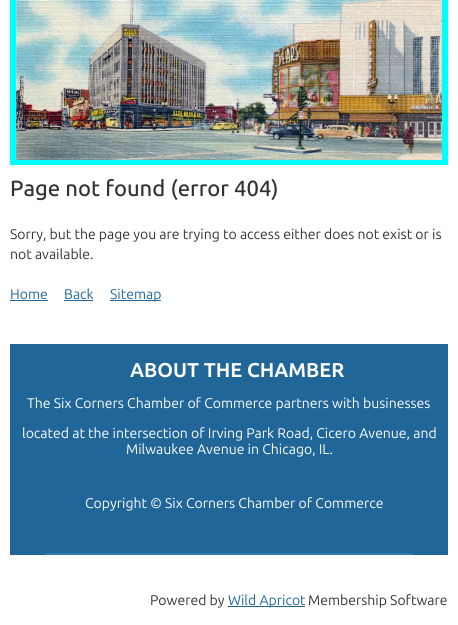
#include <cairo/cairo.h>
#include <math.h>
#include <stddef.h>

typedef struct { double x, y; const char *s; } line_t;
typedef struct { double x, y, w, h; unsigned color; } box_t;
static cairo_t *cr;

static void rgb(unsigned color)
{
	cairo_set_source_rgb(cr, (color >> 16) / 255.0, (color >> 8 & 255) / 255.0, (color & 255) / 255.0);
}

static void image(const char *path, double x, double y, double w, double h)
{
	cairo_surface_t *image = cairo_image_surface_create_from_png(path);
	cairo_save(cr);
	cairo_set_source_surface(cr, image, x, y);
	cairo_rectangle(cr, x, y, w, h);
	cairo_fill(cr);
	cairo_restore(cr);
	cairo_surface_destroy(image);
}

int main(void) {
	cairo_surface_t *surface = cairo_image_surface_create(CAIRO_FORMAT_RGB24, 458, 625);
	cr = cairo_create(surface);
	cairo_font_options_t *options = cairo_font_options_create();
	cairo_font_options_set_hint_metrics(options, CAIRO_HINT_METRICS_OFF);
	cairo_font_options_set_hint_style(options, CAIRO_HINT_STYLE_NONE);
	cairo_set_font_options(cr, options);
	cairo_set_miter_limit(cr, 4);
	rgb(0xffffff);
	cairo_paint(cr);
	rgb(0x00ffff);
	cairo_rectangle(cr, 10, 0, 438, 165);
	cairo_fill(cr);
	image("img/1.png", 16, 0, 426, 160);
	{
		static const box_t items[] = {
			{10, 300, 38, 1, 0x206699},
			{64, 300, 29, 1, 0x206699},
			{110, 300, 51, 1, 0x206699},
			{10, 344, 438, 211, 0x206699},
			{45, 553, 368, 2, 0x327aae},
			{228, 606, 77, 1, 0x206699},
		};
		for (size_t i = 0; i < sizeof items / sizeof *items; i++) {
			rgb(items[i].color);
			cairo_rectangle(cr, items[i].x, items[i].y, items[i].w, items[i].h);
			cairo_fill(cr);
		}
	}
	cairo_select_font_face(cr, "Ubuntu Medium", CAIRO_FONT_SLANT_NORMAL, CAIRO_FONT_WEIGHT_NORMAL);
	cairo_set_font_size(cr, 22);
	rgb(0x333333);
	cairo_move_to(cr, 10, 196);
	cairo_show_text(cr, "Page not found (error 404)");
	cairo_select_font_face(cr, "Ubuntu", CAIRO_FONT_SLANT_NORMAL, CAIRO_FONT_WEIGHT_NORMAL);
	cairo_set_font_size(cr, 14);
	cairo_move_to(cr, 10, 239);
	cairo_show_text(cr, "Sorry, but the page you are trying to access either does not exist or is");
	cairo_move_to(cr, 10, 259);
	cairo_show_text(cr, "not available.");
	rgb(0x206699);
	{
		static const line_t items[] = {
			{10, 299, "Home"},
			{64, 299, "Back"},
			{110, 299, "Sitemap"},
		};
		for (size_t i = 0; i < sizeof items / sizeof *items; i++) {
			cairo_move_to(cr, items[i].x, items[i].y);
			cairo_show_text(cr, items[i].s);
		}
	}
	cairo_select_font_face(cr, "Ubuntu", CAIRO_FONT_SLANT_NORMAL, CAIRO_FONT_WEIGHT_BOLD);
	cairo_set_font_size(cr, 20);
	rgb(0xffffff);
	cairo_move_to(cr, 130, 377);
	cairo_show_text(cr, "ABOUT THE CHAMBER");
	cairo_select_font_face(cr, "Ubuntu", CAIRO_FONT_SLANT_NORMAL, CAIRO_FONT_WEIGHT_NORMAL);
	cairo_set_font_size(cr, 14);
	{
		static const line_t items[] = {
			{27, 408, "The Six Corners Chamber of Commerce partners with businesses"},
			{22, 438, "located at the intersection of Irving Park Road, Cicero Avenue, and"},
			{126, 454, "Milwaukee Avenue in Chicago, IL."},
			{85, 508, "Copyright © Six Corners Chamber of Commerce"},
		};
		for (size_t i = 0; i < sizeof items / sizeof *items; i++) {
			cairo_move_to(cr, items[i].x, items[i].y);
			cairo_show_text(cr, items[i].s);
		}
	}
	rgb(0x333333);
	cairo_move_to(cr, 150, 605);
	cairo_show_text(cr, "Powered by");
	rgb(0x206699);
	cairo_move_to(cr, 228, 605);
	cairo_show_text(cr, "Wild Apricot");
	rgb(0x333333);
	cairo_move_to(cr, 308, 605);
	cairo_show_text(cr, "Membership Software");
	cairo_surface_write_to_png(surface, "page.png");
	cairo_font_options_destroy(options);
	cairo_destroy(cr);
	cairo_surface_destroy(surface);
	return 0;
}
